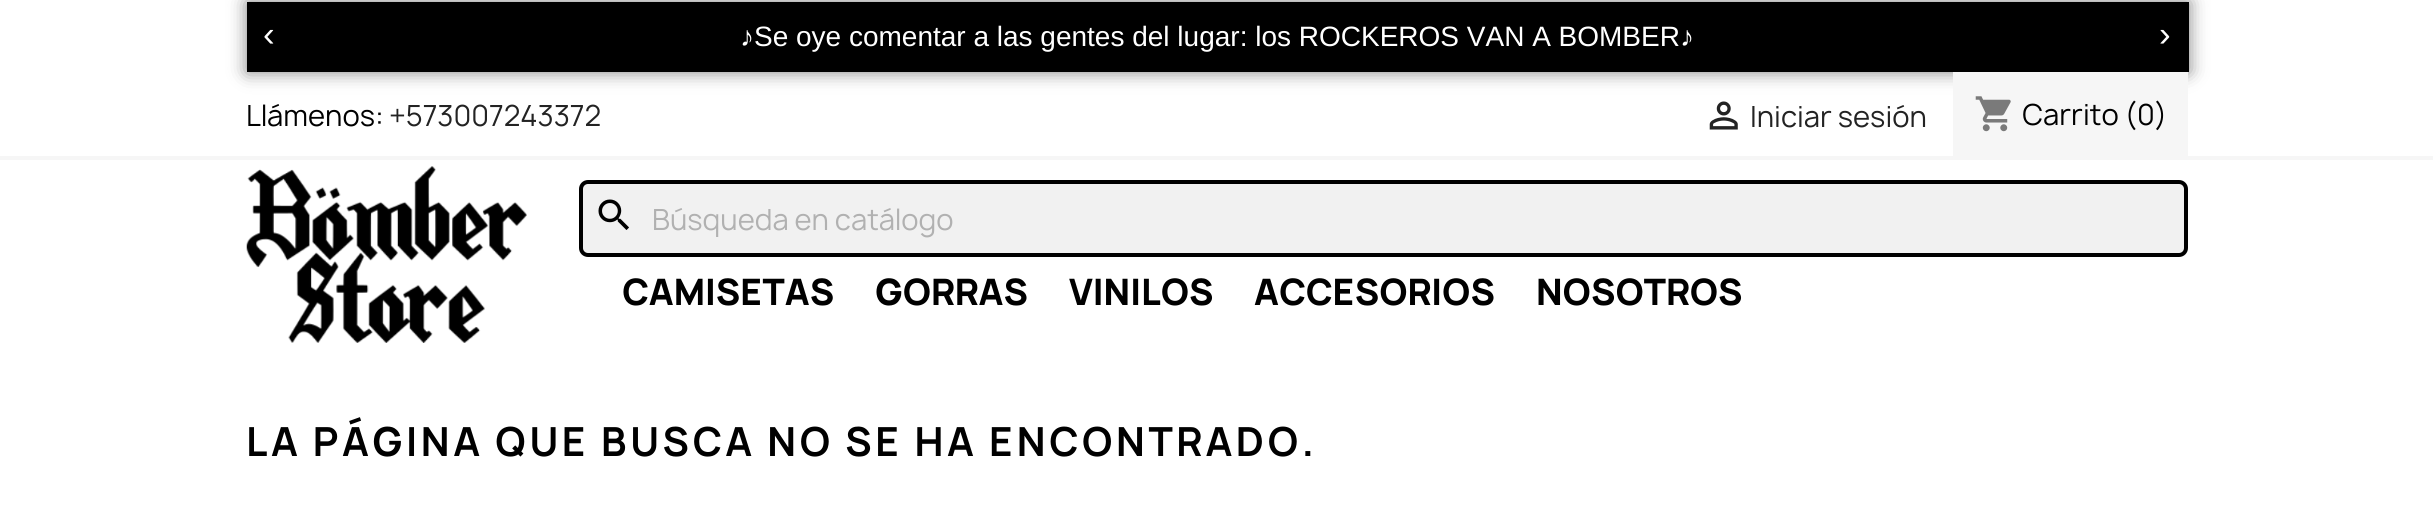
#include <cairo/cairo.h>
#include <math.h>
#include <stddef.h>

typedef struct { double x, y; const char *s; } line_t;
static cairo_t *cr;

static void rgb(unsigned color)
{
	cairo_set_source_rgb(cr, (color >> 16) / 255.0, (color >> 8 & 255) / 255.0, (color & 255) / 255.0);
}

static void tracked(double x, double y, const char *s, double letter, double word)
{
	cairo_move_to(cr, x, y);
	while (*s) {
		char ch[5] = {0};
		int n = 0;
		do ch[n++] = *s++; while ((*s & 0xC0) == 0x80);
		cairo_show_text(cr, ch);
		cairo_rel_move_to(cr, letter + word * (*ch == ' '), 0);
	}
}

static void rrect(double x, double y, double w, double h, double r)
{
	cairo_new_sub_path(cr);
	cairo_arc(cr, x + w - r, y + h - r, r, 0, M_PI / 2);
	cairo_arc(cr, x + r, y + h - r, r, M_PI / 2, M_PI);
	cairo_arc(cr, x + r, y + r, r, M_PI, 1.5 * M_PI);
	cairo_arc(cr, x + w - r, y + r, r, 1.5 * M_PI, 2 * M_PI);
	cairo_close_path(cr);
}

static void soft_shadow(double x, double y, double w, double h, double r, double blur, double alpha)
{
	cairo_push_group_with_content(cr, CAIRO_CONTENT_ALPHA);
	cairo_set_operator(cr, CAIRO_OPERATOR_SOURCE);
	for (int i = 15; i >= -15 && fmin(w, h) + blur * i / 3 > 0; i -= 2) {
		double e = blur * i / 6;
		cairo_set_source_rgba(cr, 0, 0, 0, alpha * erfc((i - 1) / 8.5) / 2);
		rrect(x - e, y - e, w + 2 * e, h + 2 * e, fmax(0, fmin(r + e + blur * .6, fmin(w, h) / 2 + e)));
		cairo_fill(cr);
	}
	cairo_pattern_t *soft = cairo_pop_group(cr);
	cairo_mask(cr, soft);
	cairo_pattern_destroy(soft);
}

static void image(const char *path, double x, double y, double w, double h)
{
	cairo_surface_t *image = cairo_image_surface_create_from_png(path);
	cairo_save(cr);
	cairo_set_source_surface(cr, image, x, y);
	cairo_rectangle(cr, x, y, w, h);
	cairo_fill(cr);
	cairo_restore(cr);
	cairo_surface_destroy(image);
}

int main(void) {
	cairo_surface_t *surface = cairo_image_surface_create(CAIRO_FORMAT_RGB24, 2433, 527);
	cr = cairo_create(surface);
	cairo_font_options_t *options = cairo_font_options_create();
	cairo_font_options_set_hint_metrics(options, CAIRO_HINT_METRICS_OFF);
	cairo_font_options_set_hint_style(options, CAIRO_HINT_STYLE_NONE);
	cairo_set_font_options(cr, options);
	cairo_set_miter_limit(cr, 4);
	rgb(0xffffff);
	cairo_paint(cr);
	rgb(0x000000);
	soft_shadow(247, 2, 1942, 70, 0, 9, 0.5);
	rgb(0x000000);
	cairo_rectangle(cr, 247, 2, 1942, 70);
	cairo_fill(cr);
	rgb(0xf6f6f6);
	cairo_rectangle(cr, 0, 156, 2433, 4);
	cairo_fill(cr);
	image("img/1.png", 1709, 101, 29, 29);
	cairo_rectangle(cr, 1953, 72, 235, 84);
	cairo_fill(cr);
	image("img/2.png", 1975, 96, 36, 36);
	image("img/3.png", 246, 166, 281, 177);
	rgb(0xf1f1f1);
	rrect(581, 182, 1605, 73, 7);
	cairo_fill_preserve(cr);
	rgb(0x000000);
	cairo_set_line_width(cr, 4);
	cairo_stroke(cr);
	image("img/4.png", 598, 199, 31, 31);
	cairo_select_font_face(cr, "Liberation Sans", CAIRO_FONT_SLANT_NORMAL, CAIRO_FONT_WEIGHT_NORMAL);
	cairo_set_font_size(cr, 35);
	rgb(0xffffff);
	cairo_move_to(cr, 263, 46);
	cairo_show_text(cr, "‹");
	cairo_set_font_size(cr, 28);
	cairo_move_to(cr, 740, 46);
	cairo_show_text(cr, "♪Se oye comentar a las gentes del lugar: los ROCKEROS VAN A BOMBER♪");
	cairo_set_font_size(cr, 35);
	cairo_move_to(cr, 2159, 46);
	cairo_show_text(cr, "›");
	cairo_select_font_face(cr, "Manrope", CAIRO_FONT_SLANT_NORMAL, CAIRO_FONT_WEIGHT_NORMAL);
	cairo_set_font_size(cr, 28);
	rgb(0x000000);
	cairo_move_to(cr, 246, 126);
	cairo_show_text(cr, "Llámenos:");
	rgb(0x232323);
	cairo_move_to(cr, 389, 126);
	cairo_show_text(cr, "+573007243372");
	cairo_move_to(cr, 1750, 127);
	cairo_show_text(cr, "Iniciar sesión");
	rgb(0x000000);
	cairo_move_to(cr, 2022, 125);
	cairo_show_text(cr, "Carrito (0)");
	rgb(0xb1b1b1);
	cairo_move_to(cr, 652, 230);
	cairo_show_text(cr, "Búsqueda en catálogo");
	cairo_select_font_face(cr, "Manrope ExtraBold", CAIRO_FONT_SLANT_NORMAL, CAIRO_FONT_WEIGHT_NORMAL);
	cairo_set_font_size(cr, 35);
	rgb(0x000000);
	{
		static const line_t items[] = {
			{622, 305, "CAMISETAS"},
			{875, 305, "GORRAS"},
			{1069, 305, "VINILOS"},
			{1254, 305, "ACCESORIOS"},
			{1536, 305, "NOSOTROS"},
		};
		for (size_t i = 0; i < sizeof items / sizeof *items; i++) {
			cairo_move_to(cr, items[i].x, items[i].y);
			cairo_show_text(cr, items[i].s);
		}
	}
	cairo_select_font_face(cr, "Manrope", CAIRO_FONT_SLANT_NORMAL, CAIRO_FONT_WEIGHT_BOLD);
	cairo_set_font_size(cr, 38.5);
	tracked(246, 456, "LA PÁGINA QUE BUSCA NO SE HA ENCONTRADO.", 3.5, 0);
	cairo_surface_write_to_png(surface, "page.png");
	cairo_font_options_destroy(options);
	cairo_destroy(cr);
	cairo_surface_destroy(surface);
	return 0;
}
